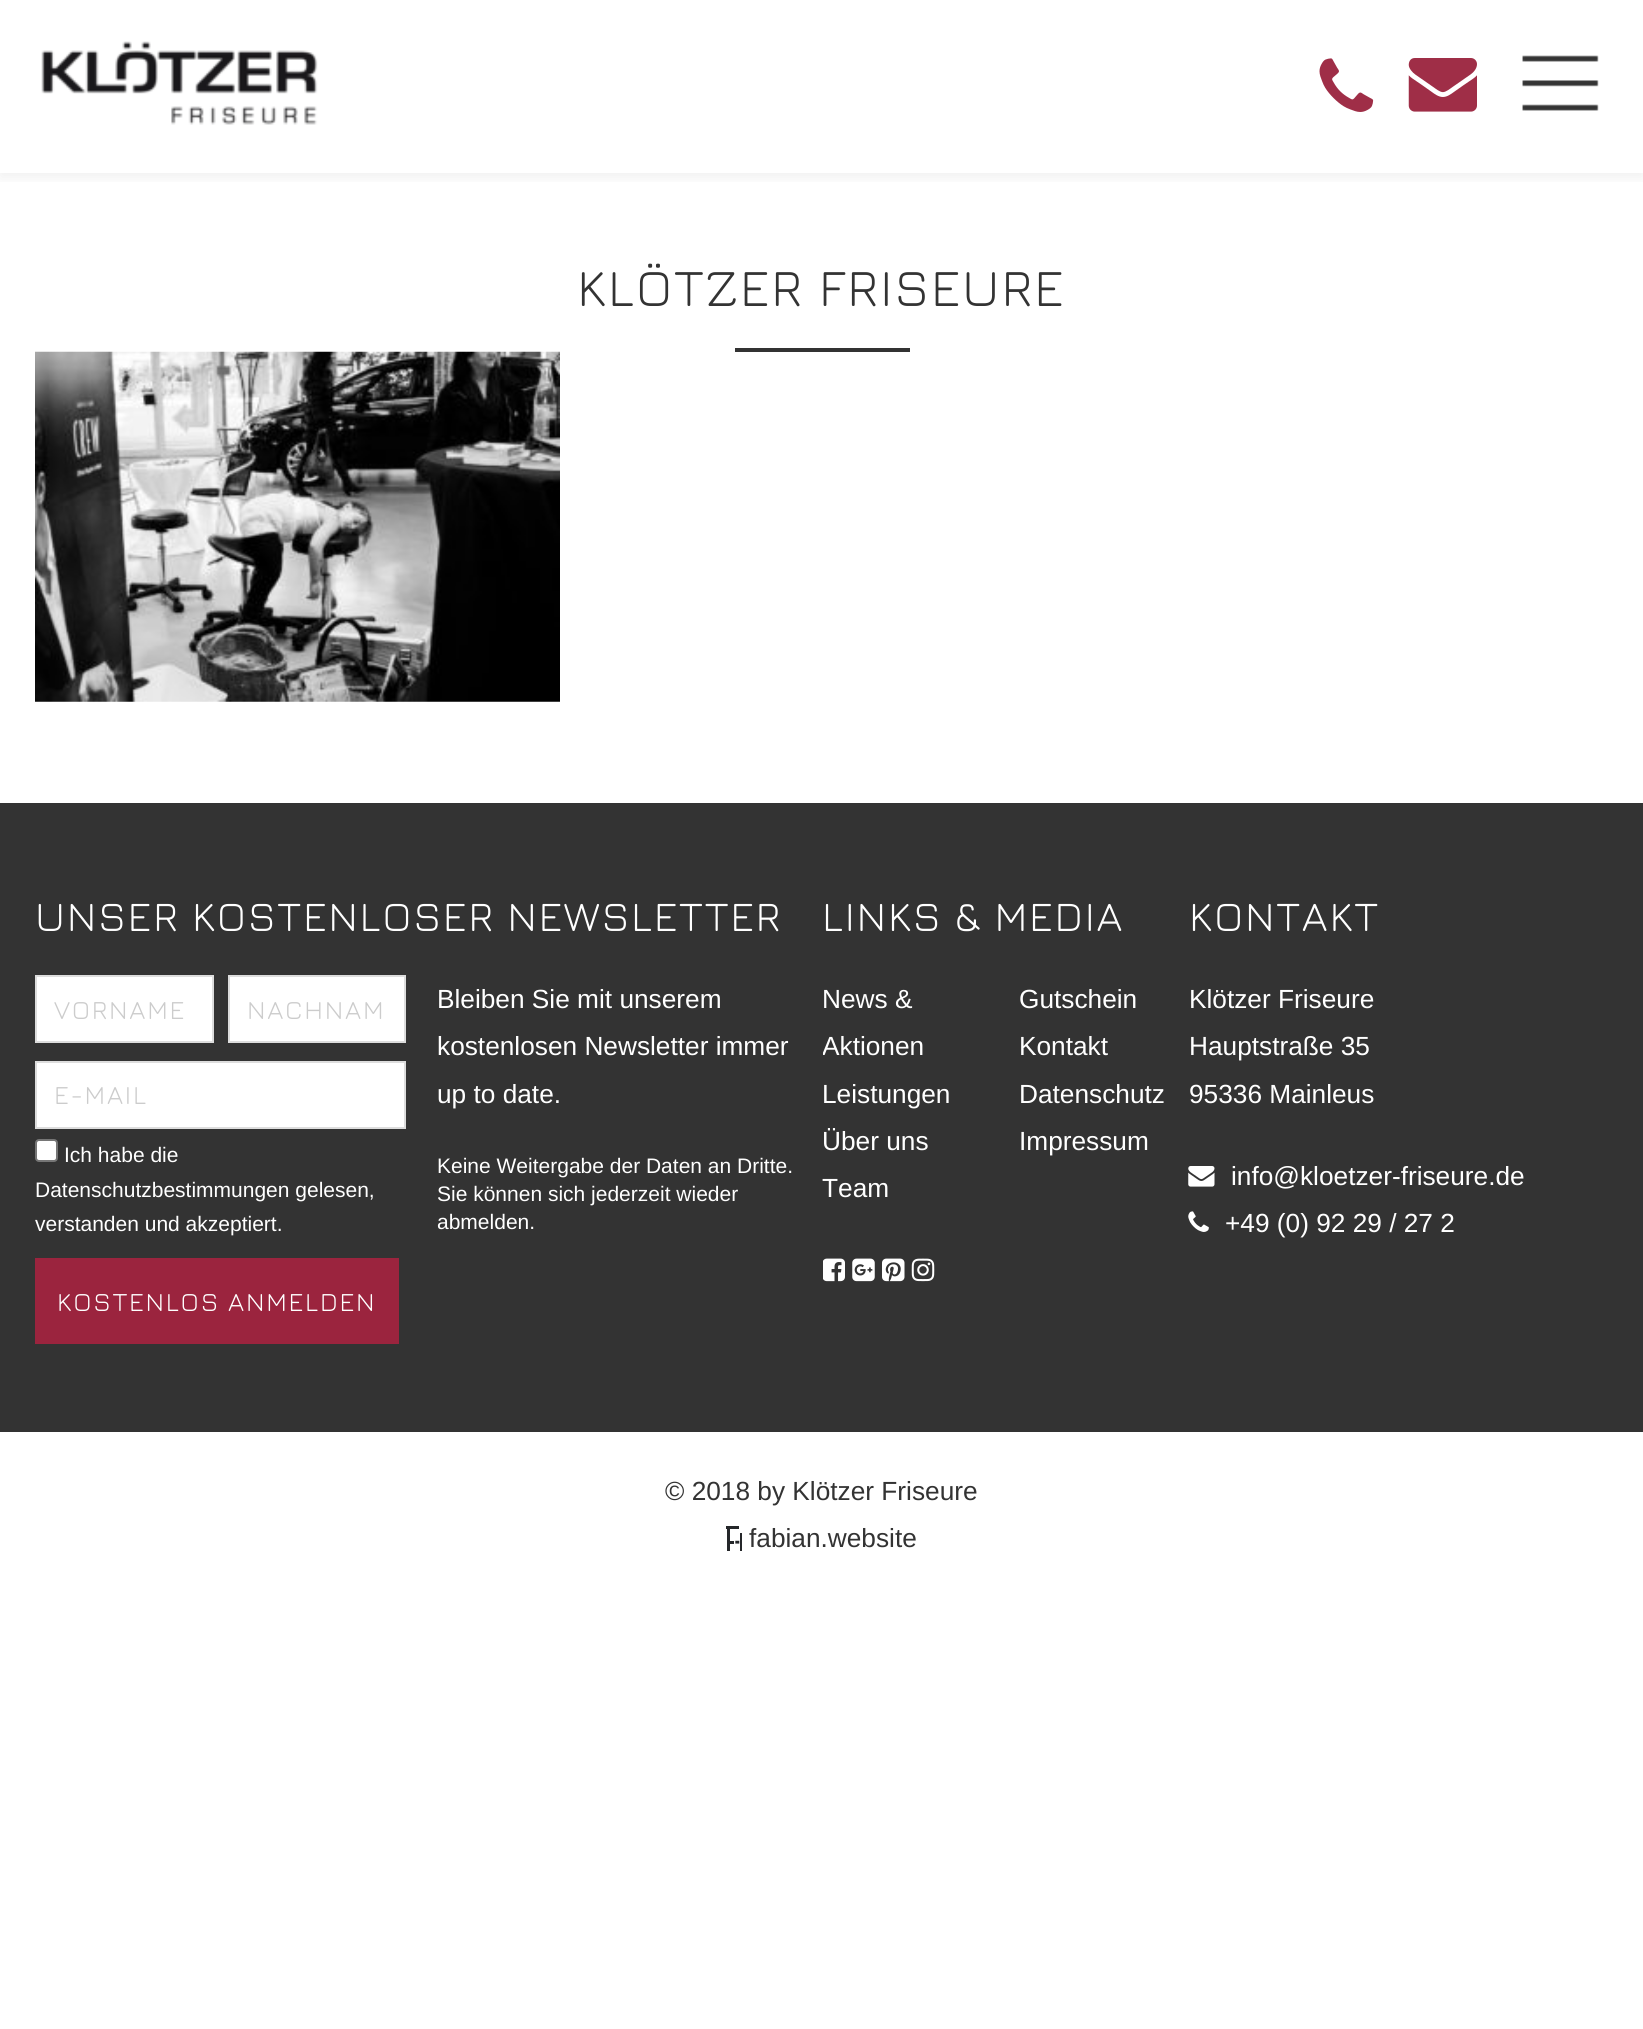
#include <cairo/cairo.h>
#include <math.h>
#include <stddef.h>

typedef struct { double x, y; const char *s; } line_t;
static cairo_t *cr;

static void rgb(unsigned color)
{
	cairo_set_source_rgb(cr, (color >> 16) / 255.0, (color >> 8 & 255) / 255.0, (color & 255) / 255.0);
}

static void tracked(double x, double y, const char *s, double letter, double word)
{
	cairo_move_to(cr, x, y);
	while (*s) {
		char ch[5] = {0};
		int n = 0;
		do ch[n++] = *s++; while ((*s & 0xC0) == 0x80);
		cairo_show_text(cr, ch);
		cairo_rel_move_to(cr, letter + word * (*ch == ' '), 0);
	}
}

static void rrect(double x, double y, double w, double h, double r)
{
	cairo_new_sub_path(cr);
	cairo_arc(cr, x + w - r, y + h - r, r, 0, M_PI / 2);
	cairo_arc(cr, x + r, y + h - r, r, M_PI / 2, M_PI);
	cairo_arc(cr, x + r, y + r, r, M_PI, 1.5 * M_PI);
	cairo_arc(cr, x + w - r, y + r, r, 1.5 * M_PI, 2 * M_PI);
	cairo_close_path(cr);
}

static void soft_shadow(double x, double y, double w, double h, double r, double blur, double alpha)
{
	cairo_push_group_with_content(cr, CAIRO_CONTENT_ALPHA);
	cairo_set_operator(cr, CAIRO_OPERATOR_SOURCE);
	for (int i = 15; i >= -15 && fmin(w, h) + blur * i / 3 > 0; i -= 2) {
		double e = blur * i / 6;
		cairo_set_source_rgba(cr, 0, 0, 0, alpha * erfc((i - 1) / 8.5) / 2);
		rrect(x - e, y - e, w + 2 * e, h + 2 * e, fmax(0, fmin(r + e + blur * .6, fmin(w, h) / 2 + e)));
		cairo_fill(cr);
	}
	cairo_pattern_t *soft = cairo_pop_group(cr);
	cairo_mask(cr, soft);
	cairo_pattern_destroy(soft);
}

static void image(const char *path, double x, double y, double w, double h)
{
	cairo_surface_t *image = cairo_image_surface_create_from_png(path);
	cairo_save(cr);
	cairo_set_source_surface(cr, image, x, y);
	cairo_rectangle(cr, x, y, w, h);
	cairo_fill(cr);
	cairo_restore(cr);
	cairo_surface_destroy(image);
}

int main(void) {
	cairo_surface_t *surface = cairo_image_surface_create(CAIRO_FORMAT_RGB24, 1643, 2029);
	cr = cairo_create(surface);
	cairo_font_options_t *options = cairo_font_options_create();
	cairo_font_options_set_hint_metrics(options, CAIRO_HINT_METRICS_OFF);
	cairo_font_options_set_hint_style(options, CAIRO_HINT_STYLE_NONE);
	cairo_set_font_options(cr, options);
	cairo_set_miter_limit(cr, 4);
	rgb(0xffffff);
	cairo_paint(cr);
	cairo_save(cr);
	cairo_rectangle(cr, 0, 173, 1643, 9);
	cairo_clip(cr);
	rgb(0x323232);
	soft_shadow(0, 4, 1643, 173, 0, 7, 0.08);
	cairo_restore(cr);
	image("img/1.png", 41, 41, 277, 84);
	image("img/2.png", 1319, 58, 55, 54);
	image("img/3.png", 1408, 58, 69, 54);
	image("img/4.png", 1522, 55, 77, 56);
	rgb(0x333333);
	cairo_rectangle(cr, 735, 348, 175, 4);
	cairo_fill(cr);
	image("img/5.png", 35, 351, 525, 351);
	cairo_rectangle(cr, 0, 803, 1643, 629);
	cairo_fill(cr);
	rgb(0xffffff);
	cairo_rectangle(cr, 36, 976, 177, 66);
	cairo_fill_preserve(cr);
	rgb(0xdddddd);
	cairo_stroke(cr);
	rgb(0xffffff);
	cairo_rectangle(cr, 229, 976, 176, 66);
	cairo_fill_preserve(cr);
	rgb(0xdddddd);
	cairo_stroke(cr);
	rgb(0xffffff);
	cairo_rectangle(cr, 36, 1062, 369, 66);
	cairo_fill_preserve(cr);
	rgb(0xdddddd);
	cairo_stroke(cr);
	rgb(0xffffff);
	rrect(36, 1140, 21, 21, 3);
	cairo_fill_preserve(cr);
	rgb(0x767676);
	cairo_stroke(cr);
	rgb(0x9b243e);
	cairo_rectangle(cr, 35, 1258, 364, 86);
	cairo_fill(cr);
	image("img/6.png", 823, 1258, 22, 24);
	image("img/7.png", 852, 1258, 23, 24);
	image("img/8.png", 882, 1258, 23, 24);
	image("img/9.png", 911, 1258, 24, 24);
	image("img/10.png", 1188, 1166, 27, 21);
	image("img/11.png", 1188, 1211, 21, 21);
	image("img/12.png", 726, 1526, 16, 25);
	cairo_select_font_face(cr, "Jura", CAIRO_FONT_SLANT_NORMAL, CAIRO_FONT_WEIGHT_NORMAL);
	cairo_set_font_size(cr, 52.5);
	rgb(0x333333);
	tracked(577, 306, "KLÖTZER FRISEURE", 1.75, 0);
	cairo_set_font_size(cr, 42);
	rgb(0xffffff);
	tracked(35, 931, "UNSER KOSTENLOSER NEWSLETTER", 1.75, 0);
	cairo_set_font_size(cr, 26.25);
	rgb(0xcccccc);
	{
		static const line_t items[] = {
			{54, 1019, "VORNAME"},
			{247, 1019, "NACHNAM"},
			{54, 1104, "E-MAIL"},
		};
		for (size_t i = 0; i < sizeof items / sizeof *items; i++) {
			tracked(items[i].x, items[i].y, items[i].s, 1.75, 0);
		}
	}
	cairo_select_font_face(cr, "Liberation Sans", CAIRO_FONT_SLANT_NORMAL, CAIRO_FONT_WEIGHT_NORMAL);
	cairo_set_font_size(cr, 21);
	rgb(0xffffff);
	{
		static const line_t items[] = {
			{64, 1162, "Ich habe die"},
			{35, 1197, "Datenschutzbestimmungen gelesen,"},
			{35, 1231, "verstanden und akzeptiert."},
		};
		for (size_t i = 0; i < sizeof items / sizeof *items; i++) {
			cairo_move_to(cr, items[i].x, items[i].y);
			cairo_show_text(cr, items[i].s);
		}
	}
	cairo_select_font_face(cr, "Jura", CAIRO_FONT_SLANT_NORMAL, CAIRO_FONT_WEIGHT_NORMAL);
	cairo_set_font_size(cr, 26.25);
	tracked(57, 1311, "KOSTENLOS ANMELDEN", 1.75, 0);
	cairo_select_font_face(cr, "Liberation Sans", CAIRO_FONT_SLANT_NORMAL, CAIRO_FONT_WEIGHT_NORMAL);
	{
		static const line_t items[] = {
			{437, 1008, "Bleiben Sie mit unserem"},
			{437, 1055, "kostenlosen Newsletter immer"},
			{437, 1103, "up to date."},
		};
		for (size_t i = 0; i < sizeof items / sizeof *items; i++) {
			cairo_move_to(cr, items[i].x, items[i].y);
			cairo_show_text(cr, items[i].s);
		}
	}
	cairo_set_font_size(cr, 21);
	{
		static const line_t items[] = {
			{437, 1173, "Keine Weitergabe der Daten an Dritte."},
			{437, 1201, "Sie können sich jederzeit wieder"},
			{437, 1229, "abmelden."},
		};
		for (size_t i = 0; i < sizeof items / sizeof *items; i++) {
			cairo_move_to(cr, items[i].x, items[i].y);
			cairo_show_text(cr, items[i].s);
		}
	}
	cairo_select_font_face(cr, "Jura", CAIRO_FONT_SLANT_NORMAL, CAIRO_FONT_WEIGHT_NORMAL);
	cairo_set_font_size(cr, 42);
	tracked(822, 931, "LINKS & MEDIA", 1.75, 0);
	cairo_select_font_face(cr, "Liberation Sans", CAIRO_FONT_SLANT_NORMAL, CAIRO_FONT_WEIGHT_NORMAL);
	cairo_set_font_size(cr, 26.25);
	cairo_move_to(cr, 822, 1008);
	cairo_show_text(cr, "News &");
	cairo_save(cr);
	cairo_rectangle(cr, 823, 891, 365, 402);
	cairo_clip(cr);
	cairo_move_to(cr, 822, 1055);
	cairo_show_text(cr, "Aktionen");
	cairo_restore(cr);
	{
		static const line_t items[] = {
			{1019, 1008, "Gutschein"},
			{1019, 1055, "Kontakt"},
			{822, 1103, "Leistungen"},
			{1019, 1103, "Datenschutz"},
			{822, 1150, "Über uns"},
			{1019, 1150, "Impressum"},
			{822, 1197, "Team"},
		};
		for (size_t i = 0; i < sizeof items / sizeof *items; i++) {
			cairo_move_to(cr, items[i].x, items[i].y);
			cairo_show_text(cr, items[i].s);
		}
	}
	cairo_select_font_face(cr, "Jura", CAIRO_FONT_SLANT_NORMAL, CAIRO_FONT_WEIGHT_NORMAL);
	cairo_set_font_size(cr, 42);
	tracked(1189, 931, "KONTAKT", 1.75, 0);
	cairo_select_font_face(cr, "Liberation Sans", CAIRO_FONT_SLANT_NORMAL, CAIRO_FONT_WEIGHT_NORMAL);
	cairo_set_font_size(cr, 26.25);
	{
		static const line_t items[] = {
			{1189, 1008, "Klötzer Friseure"},
			{1189, 1055, "Hauptstraße 35"},
			{1189, 1103, "95336 Mainleus"},
			{1231, 1185, "info@kloetzer-friseure.de"},
			{1225, 1232, "+49 (0) 92 29 / 27 2"},
		};
		for (size_t i = 0; i < sizeof items / sizeof *items; i++) {
			cairo_move_to(cr, items[i].x, items[i].y);
			cairo_show_text(cr, items[i].s);
		}
	}
	rgb(0x333333);
	cairo_move_to(cr, 665, 1500);
	cairo_show_text(cr, "© 2018 by Klötzer Friseure");
	cairo_move_to(cr, 749, 1547);
	cairo_show_text(cr, "fabian.website");
	cairo_surface_write_to_png(surface, "page.png");
	cairo_font_options_destroy(options);
	cairo_destroy(cr);
	cairo_surface_destroy(surface);
	return 0;
}
